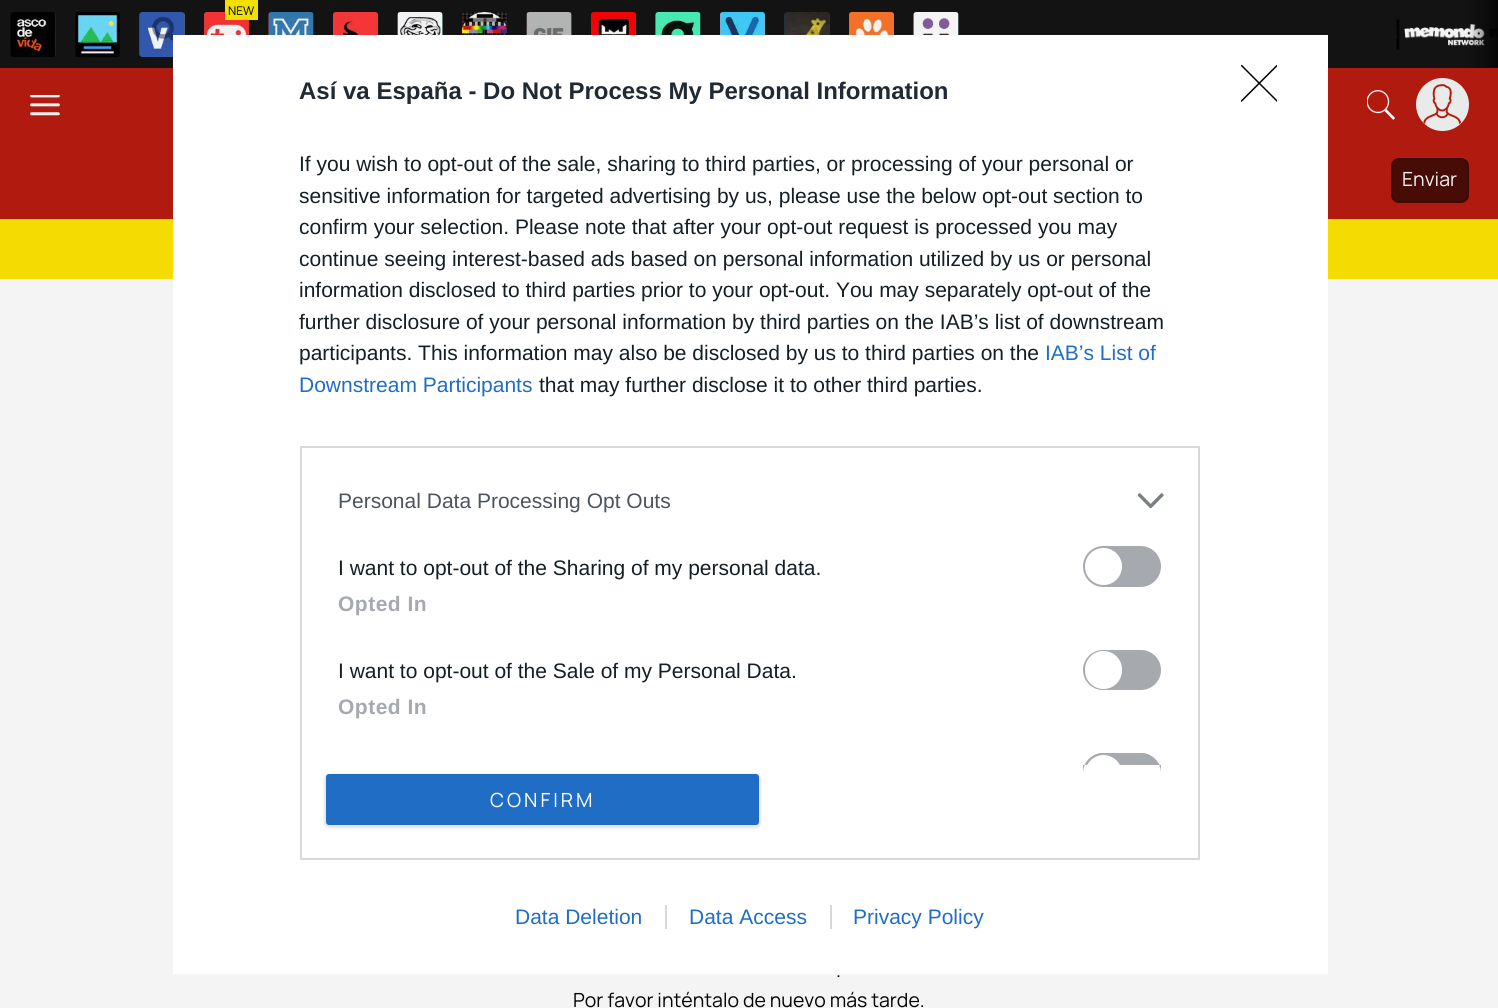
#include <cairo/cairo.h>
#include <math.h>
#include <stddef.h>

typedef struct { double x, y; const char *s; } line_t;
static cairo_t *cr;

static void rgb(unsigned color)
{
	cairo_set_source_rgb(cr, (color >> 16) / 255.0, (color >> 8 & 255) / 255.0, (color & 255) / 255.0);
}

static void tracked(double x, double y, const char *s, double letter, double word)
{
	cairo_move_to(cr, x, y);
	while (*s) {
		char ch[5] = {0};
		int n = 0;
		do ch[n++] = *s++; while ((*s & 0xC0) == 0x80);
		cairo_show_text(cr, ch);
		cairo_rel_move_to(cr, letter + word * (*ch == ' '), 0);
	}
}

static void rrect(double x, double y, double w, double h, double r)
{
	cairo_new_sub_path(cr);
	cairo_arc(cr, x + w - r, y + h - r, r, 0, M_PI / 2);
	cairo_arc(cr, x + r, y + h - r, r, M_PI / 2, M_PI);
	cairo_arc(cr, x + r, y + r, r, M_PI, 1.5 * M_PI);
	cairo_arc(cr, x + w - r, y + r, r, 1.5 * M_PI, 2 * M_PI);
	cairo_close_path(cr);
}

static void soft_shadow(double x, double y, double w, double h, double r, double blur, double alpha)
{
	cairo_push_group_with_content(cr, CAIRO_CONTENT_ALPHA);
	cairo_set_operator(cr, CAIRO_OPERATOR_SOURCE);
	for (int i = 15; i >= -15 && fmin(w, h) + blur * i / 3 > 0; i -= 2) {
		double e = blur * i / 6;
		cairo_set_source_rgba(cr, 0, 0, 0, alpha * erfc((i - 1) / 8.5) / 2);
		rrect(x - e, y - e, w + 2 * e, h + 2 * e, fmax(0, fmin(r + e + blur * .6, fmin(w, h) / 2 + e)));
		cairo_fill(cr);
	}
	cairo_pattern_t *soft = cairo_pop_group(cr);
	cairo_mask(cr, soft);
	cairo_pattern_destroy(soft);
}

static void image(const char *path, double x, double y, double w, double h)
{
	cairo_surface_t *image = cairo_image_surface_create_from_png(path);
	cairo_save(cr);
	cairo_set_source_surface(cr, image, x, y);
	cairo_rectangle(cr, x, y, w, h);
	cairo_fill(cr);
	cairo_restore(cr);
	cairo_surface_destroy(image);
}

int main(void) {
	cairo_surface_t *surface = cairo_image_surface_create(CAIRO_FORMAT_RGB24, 1498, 1008);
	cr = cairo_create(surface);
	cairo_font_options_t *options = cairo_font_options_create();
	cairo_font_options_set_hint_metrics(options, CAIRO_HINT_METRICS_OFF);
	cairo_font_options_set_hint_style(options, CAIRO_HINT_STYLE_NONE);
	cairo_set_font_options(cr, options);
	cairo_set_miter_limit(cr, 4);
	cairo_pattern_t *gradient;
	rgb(0xf4f4f5);
	cairo_paint(cr);
	rgb(0x131314);
	cairo_rectangle(cr, 0, 0, 1498, 68);
	cairo_fill(cr);
	image("img/4.png", 204, 12, 45, 23);
	rgb(0xf3e003);
	cairo_rectangle(cr, 225, 0, 33, 20);
	cairo_fill(cr);
	image("img/1.png", 10, 12, 46, 45);
	image("img/2.png", 75, 12, 45, 45);
	image("img/3.png", 139, 12, 46, 45);
	image("img/5.png", 268, 12, 46, 23);
	image("img/6.png", 333, 12, 45, 23);
	image("img/7.png", 397, 12, 46, 23);
	image("img/8.png", 462, 12, 45, 23);
	image("img/9.png", 526, 12, 46, 23);
	image("img/10.png", 591, 12, 45, 23);
	image("img/11.png", 655, 12, 46, 23);
	image("img/12.png", 720, 12, 45, 23);
	image("img/13.png", 784, 12, 46, 23);
	image("img/14.png", 849, 12, 45, 23);
	image("img/15.png", 913, 12, 46, 23);
	image("img/16.png", 1396, 19, 102, 31);
	gradient = cairo_pattern_create_linear(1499, 34, 1469, 34);
	cairo_pattern_add_color_stop_rgba(gradient, 0, 0.008, 0.008, 0.012, 0.75);
	cairo_pattern_add_color_stop_rgba(gradient, 1, 0.008, 0.008, 0.012, 0);
	cairo_set_source(cr, gradient);
	cairo_pattern_destroy(gradient);
	cairo_rectangle(cr, 1470, 0, 28, 68);
	cairo_fill(cr);
	rgb(0xb11a0e);
	cairo_rectangle(cr, 0, 68, 1498, 151);
	cairo_fill(cr);
	image("img/17.png", 30, 95, 30, 21);
	image("img/18.png", 1367, 90, 28, 30);
	rgb(0xe9eaea);
	cairo_arc(cr, 1442.5, 104.5, 26.5, 0, 2 * M_PI);
	cairo_fill(cr);
	image("img/19.png", 1423, 84, 38, 41);
	rgb(0x480c07);
	rrect(1391, 158, 78, 45, 8);
	cairo_fill(cr);
	rrect(1392, 159, 76, 43, 7);
	cairo_set_source_rgba(cr, 0.008, 0.008, 0.012, 0.15);
	cairo_stroke(cr);
	rgb(0xf4dc03);
	cairo_rectangle(cr, 0, 219, 1498, 60);
	cairo_fill(cr);
	rgb(0xffffff);
	cairo_rectangle(cr, 173, 35, 1155, 939);
	cairo_fill(cr);
	cairo_rectangle(cr, 301, 447, 898, 412);
	rgb(0xd8d8d8);
	cairo_stroke(cr);
	image("img/20.png", 1137, 493, 27, 16);
	rgb(0xa6a9ae);
	rrect(1084, 547, 76, 39, 19.5);
	cairo_fill_preserve(cr);
	cairo_stroke(cr);
	rgb(0xffffff);
	cairo_arc(cr, 1103.5, 566.5, 18.5, 0, 2 * M_PI);
	cairo_fill(cr);
	rgb(0xa6a9ae);
	rrect(1084, 651, 76, 38, 19);
	cairo_fill_preserve(cr);
	cairo_stroke(cr);
	rgb(0xffffff);
	rrect(1085, 651, 37, 38, 18.5);
	cairo_fill(cr);
	rgb(0xa6a9ae);
	cairo_new_path(cr);
	cairo_move_to(cr, 1103.5, 753);
	cairo_line_to(cr, 1140.5, 753);
	cairo_curve_to(cr, 1152, 753, 1161, 762, 1161, 773.5);
	cairo_line_to(cr, 1161, 765);
	cairo_line_to(cr, 1083, 765);
	cairo_line_to(cr, 1083, 773.5);
	cairo_curve_to(cr, 1083, 762, 1092, 753, 1103.5, 753);
	cairo_close_path(cr);
	cairo_fill(cr);
	cairo_save(cr);
	cairo_rectangle(cr, 317, 462, 867, 303);
	cairo_clip(cr);
	rrect(1084, 754, 76, 39, 19.5);
	cairo_stroke(cr);
	cairo_restore(cr);
	rgb(0xffffff);
	cairo_new_path(cr);
	cairo_move_to(cr, 1103.5, 755);
	cairo_curve_to(cr, 1113.5, 755, 1122, 763.5, 1122, 773.5);
	cairo_line_to(cr, 1122, 765);
	cairo_line_to(cr, 1085, 765);
	cairo_line_to(cr, 1085, 773.5);
	cairo_curve_to(cr, 1085, 763.5, 1093.5, 755, 1103.5, 755);
	cairo_close_path(cr);
	cairo_fill(cr);
	rgb(0x000000);
	soft_shadow(324, 774, 437, 54, 5, 1, 0.1);
	rgb(0x206dc5);
	rrect(326, 774, 433, 51, 3);
	cairo_fill(cr);
	cairo_save(cr);
	cairo_rectangle(cr, 1241, 65, 36, 37);
	cairo_clip(cr);
	cairo_new_path(cr);
	cairo_move_to(cr, 1241.5, 65.5);
	cairo_line_to(cr, 1277, 101);
	cairo_move_to(cr, 1277, 65.5);
	cairo_line_to(cr, 1241.5, 101);
	rgb(0x000000);
	cairo_set_line_width(cr, 1.5);
	cairo_set_line_cap(cr, CAIRO_LINE_CAP_ROUND);
	cairo_set_line_join(cr, CAIRO_LINE_JOIN_ROUND);
	cairo_stroke(cr);
	cairo_restore(cr);
	rgb(0xd8d8d8);
	cairo_rectangle(cr, 665, 905, 2, 24);
	cairo_fill(cr);
	cairo_rectangle(cr, 830, 905, 2, 24);
	cairo_fill(cr);
	cairo_select_font_face(cr, "Manrope", CAIRO_FONT_SLANT_NORMAL, CAIRO_FONT_WEIGHT_NORMAL);
	cairo_set_font_size(cr, 12);
	rgb(0x020203);
	cairo_move_to(cr, 228, 15);
	cairo_show_text(cr, "NEW");
	cairo_set_font_size(cr, 19.5);
	rgb(0xf4f4f5);
	cairo_move_to(cr, 1402, 186);
	cairo_show_text(cr, "Enviar");
	rgb(0x020203);
	cairo_move_to(cr, 836, 977);
	cairo_show_text(cr, ".");
	cairo_move_to(cr, 573, 1007);
	cairo_show_text(cr, "Por favor inténtalo de nuevo más tarde.");
	cairo_select_font_face(cr, "Liberation Sans", CAIRO_FONT_SLANT_NORMAL, CAIRO_FONT_WEIGHT_BOLD);
	cairo_set_font_size(cr, 24);
	rgb(0x212934);
	cairo_move_to(cr, 299, 99);
	cairo_show_text(cr, "Así va España - Do Not Process My Personal Information");
	cairo_select_font_face(cr, "Liberation Sans", CAIRO_FONT_SLANT_NORMAL, CAIRO_FONT_WEIGHT_NORMAL);
	cairo_set_font_size(cr, 21);
	rgb(0x141e23);
	{
		static const line_t items[] = {
			{299, 171, "If you wish to opt-out of the sale, sharing to third parties, or processing of your personal or"},
			{299, 203, "sensitive information for targeted advertising by us, please use the below opt-out section to"},
			{299, 234, "confirm your selection. Please note that after your opt-out request is processed you may"},
			{299, 266, "continue seeing interest-based ads based on personal information utilized by us or personal"},
			{299, 297, "information disclosed to third parties prior to your opt-out. You may separately opt-out of the"},
			{299, 329, "further disclosure of your personal information by third parties on the IAB’s list of downstream"},
			{299, 360, "participants. This information may also be disclosed by us to third parties on the"},
		};
		for (size_t i = 0; i < sizeof items / sizeof *items; i++) {
			cairo_move_to(cr, items[i].x, items[i].y);
			cairo_show_text(cr, items[i].s);
		}
	}
	rgb(0x206dc5);
	cairo_move_to(cr, 1045, 360);
	cairo_show_text(cr, "IAB’s List of");
	cairo_move_to(cr, 299, 392);
	cairo_show_text(cr, "Downstream Participants");
	rgb(0x141e23);
	cairo_move_to(cr, 539, 392);
	cairo_show_text(cr, "that may further disclose it to other third parties.");
	rgb(0x4d545d);
	cairo_move_to(cr, 338, 508);
	cairo_show_text(cr, "Personal Data Processing Opt Outs");
	rgb(0x141e23);
	cairo_move_to(cr, 338, 575);
	cairo_show_text(cr, "I want to opt-out of the Sharing of my personal data.");
	cairo_select_font_face(cr, "Liberation Sans", CAIRO_FONT_SLANT_NORMAL, CAIRO_FONT_WEIGHT_BOLD);
	rgb(0xa6a9ae);
	tracked(338, 611, "Opted In", 0.5, 0);
	cairo_select_font_face(cr, "Liberation Sans", CAIRO_FONT_SLANT_NORMAL, CAIRO_FONT_WEIGHT_NORMAL);
	rgb(0x141e23);
	cairo_move_to(cr, 338, 678);
	cairo_show_text(cr, "I want to opt-out of the Sale of my Personal Data.");
	cairo_select_font_face(cr, "Liberation Sans", CAIRO_FONT_SLANT_NORMAL, CAIRO_FONT_WEIGHT_BOLD);
	rgb(0xa6a9ae);
	tracked(338, 714, "Opted In", 0.5, 0);
	cairo_select_font_face(cr, "Manrope", CAIRO_FONT_SLANT_NORMAL, CAIRO_FONT_WEIGHT_NORMAL);
	cairo_set_font_size(cr, 19.5);
	rgb(0xffffff);
	tracked(490, 807, "CONFIRM", 3, 0);
	cairo_select_font_face(cr, "Liberation Sans", CAIRO_FONT_SLANT_NORMAL, CAIRO_FONT_WEIGHT_NORMAL);
	cairo_set_font_size(cr, 21);
	rgb(0x206dc5);
	{
		static const line_t items[] = {
			{515, 924, "Data Deletion"},
			{689, 924, "Data Access"},
			{853, 924, "Privacy Policy"},
		};
		for (size_t i = 0; i < sizeof items / sizeof *items; i++) {
			cairo_move_to(cr, items[i].x, items[i].y);
			cairo_show_text(cr, items[i].s);
		}
	}
	cairo_surface_write_to_png(surface, "page.png");
	cairo_font_options_destroy(options);
	cairo_destroy(cr);
	cairo_surface_destroy(surface);
	return 0;
}
